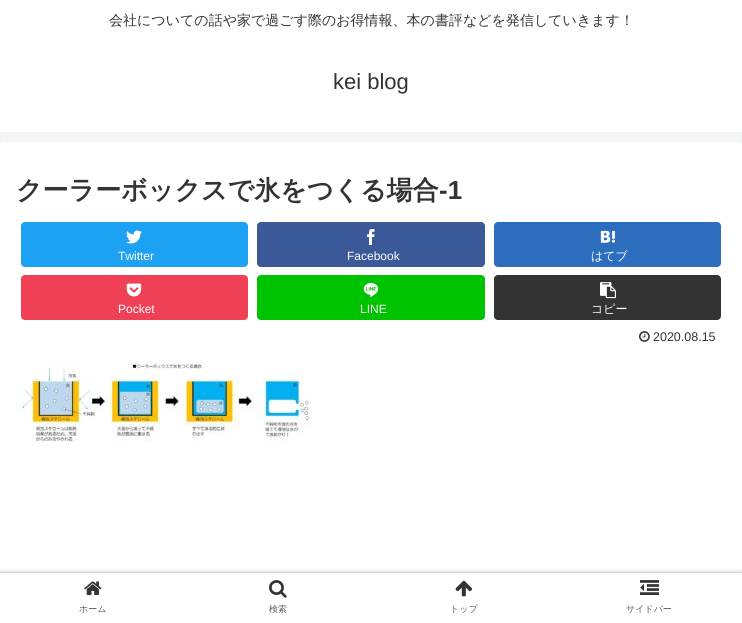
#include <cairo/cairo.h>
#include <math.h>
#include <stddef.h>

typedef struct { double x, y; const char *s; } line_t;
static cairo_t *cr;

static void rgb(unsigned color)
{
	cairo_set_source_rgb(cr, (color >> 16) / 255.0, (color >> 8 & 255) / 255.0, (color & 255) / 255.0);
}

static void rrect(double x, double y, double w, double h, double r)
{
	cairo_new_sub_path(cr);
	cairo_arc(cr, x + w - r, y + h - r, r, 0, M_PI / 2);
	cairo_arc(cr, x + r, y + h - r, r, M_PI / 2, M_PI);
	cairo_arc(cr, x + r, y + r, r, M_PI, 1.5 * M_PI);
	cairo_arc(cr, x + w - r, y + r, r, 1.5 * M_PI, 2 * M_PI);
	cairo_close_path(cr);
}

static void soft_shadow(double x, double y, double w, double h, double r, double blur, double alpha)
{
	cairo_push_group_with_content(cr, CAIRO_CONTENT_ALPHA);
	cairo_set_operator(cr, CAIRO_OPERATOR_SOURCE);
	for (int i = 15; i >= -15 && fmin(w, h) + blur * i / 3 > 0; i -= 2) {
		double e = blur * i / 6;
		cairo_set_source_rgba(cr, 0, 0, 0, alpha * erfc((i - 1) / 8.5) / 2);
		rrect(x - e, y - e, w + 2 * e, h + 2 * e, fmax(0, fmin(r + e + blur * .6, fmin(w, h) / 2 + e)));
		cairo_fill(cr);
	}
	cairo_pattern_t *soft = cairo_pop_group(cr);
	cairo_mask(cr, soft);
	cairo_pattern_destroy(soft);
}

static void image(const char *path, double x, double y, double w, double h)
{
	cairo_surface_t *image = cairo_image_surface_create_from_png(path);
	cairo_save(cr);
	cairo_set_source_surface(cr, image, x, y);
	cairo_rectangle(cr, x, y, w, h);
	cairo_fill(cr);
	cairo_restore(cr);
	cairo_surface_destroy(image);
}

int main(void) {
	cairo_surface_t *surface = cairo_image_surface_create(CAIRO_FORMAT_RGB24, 742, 623);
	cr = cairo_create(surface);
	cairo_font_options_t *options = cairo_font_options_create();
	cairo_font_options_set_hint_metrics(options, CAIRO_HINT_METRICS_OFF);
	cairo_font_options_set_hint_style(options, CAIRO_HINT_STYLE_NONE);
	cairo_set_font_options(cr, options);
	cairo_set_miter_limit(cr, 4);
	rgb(0xf4f5f7);
	cairo_paint(cr);
	rgb(0xffffff);
	cairo_rectangle(cr, 0, 0, 742, 132);
	cairo_fill(cr);
	rrect(0, 142, 742, 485, 4);
	cairo_fill(cr);
	rgb(0x1da1f2);
	rrect(21, 222, 227, 45, 4);
	cairo_fill(cr);
	image("img/1.png", 126, 230, 16, 14);
	rgb(0x3b5998);
	rrect(257, 222, 228, 45, 4);
	cairo_fill(cr);
	image("img/2.png", 367, 229, 8, 16);
	rgb(0x2c6ebd);
	rrect(494, 222, 227, 45, 4);
	cairo_fill(cr);
	image("img/3.png", 600, 230, 16, 13);
	rgb(0xef4056);
	rrect(21, 275, 227, 45, 4);
	cairo_fill(cr);
	image("img/4.png", 126, 283, 16, 14);
	rgb(0x00c300);
	rrect(257, 275, 228, 45, 4);
	cairo_fill(cr);
	image("img/5.png", 363, 283, 16, 14);
	rgb(0x333333);
	rrect(494, 275, 227, 45, 4);
	cairo_fill(cr);
	image("img/6.png", 600, 282, 16, 17);
	image("img/7.png", 639, 331, 11, 11);
	image("img/8.png", 16, 362, 296, 80);
	rgb(0xa9a9a9);
	soft_shadow(0, 573, 742, 50, 0, 2.5, 1);
	rgb(0xffffff);
	cairo_rectangle(cr, 0, 573, 742, 50);
	cairo_fill(cr);
	image("img/9.png", 84, 581, 18, 14);
	image("img/10.png", 269, 580, 18, 18);
	image("img/11.png", 455, 580, 17, 17);
	image("img/12.png", 640, 580, 19, 15);
	cairo_select_font_face(cr, "WenQuanYi Zen Hei Medium", CAIRO_FONT_SLANT_NORMAL, CAIRO_FONT_WEIGHT_NORMAL);
	cairo_set_font_size(cr, 14);
	rgb(0x333333);
	cairo_move_to(cr, 109, 25);
	cairo_show_text(cr, "会社についての話や家で過ごす際のお得情報、本の書評などを発信していきます！");
	cairo_select_font_face(cr, "Liberation Sans", CAIRO_FONT_SLANT_NORMAL, CAIRO_FONT_WEIGHT_NORMAL);
	cairo_set_font_size(cr, 22);
	cairo_move_to(cr, 333, 89);
	cairo_show_text(cr, "kei blog");
	cairo_select_font_face(cr, "WenQuanYi Zen Hei", CAIRO_FONT_SLANT_NORMAL, CAIRO_FONT_WEIGHT_BOLD);
	cairo_set_font_size(cr, 26);
	cairo_move_to(cr, 16, 199);
	cairo_show_text(cr, "クーラーボックスで氷をつくる場合");
	cairo_select_font_face(cr, "Liberation Sans", CAIRO_FONT_SLANT_NORMAL, CAIRO_FONT_WEIGHT_BOLD);
	cairo_move_to(cr, 439, 199);
	cairo_show_text(cr, "-1");
	cairo_select_font_face(cr, "Liberation Sans", CAIRO_FONT_SLANT_NORMAL, CAIRO_FONT_WEIGHT_NORMAL);
	cairo_set_font_size(cr, 12);
	rgb(0xffffff);
	cairo_move_to(cr, 118, 260);
	cairo_show_text(cr, "Twitter");
	cairo_move_to(cr, 347, 260);
	cairo_show_text(cr, "Facebook");
	cairo_select_font_face(cr, "WenQuanYi Zen Hei Medium", CAIRO_FONT_SLANT_NORMAL, CAIRO_FONT_WEIGHT_NORMAL);
	cairo_move_to(cr, 591, 260);
	cairo_show_text(cr, "はてブ");
	cairo_select_font_face(cr, "Liberation Sans", CAIRO_FONT_SLANT_NORMAL, CAIRO_FONT_WEIGHT_NORMAL);
	cairo_move_to(cr, 118, 313);
	cairo_show_text(cr, "Pocket");
	cairo_move_to(cr, 360, 313);
	cairo_show_text(cr, "LINE");
	cairo_select_font_face(cr, "WenQuanYi Zen Hei Medium", CAIRO_FONT_SLANT_NORMAL, CAIRO_FONT_WEIGHT_NORMAL);
	cairo_move_to(cr, 591, 313);
	cairo_show_text(cr, "コピー");
	cairo_select_font_face(cr, "Liberation Sans", CAIRO_FONT_SLANT_NORMAL, CAIRO_FONT_WEIGHT_NORMAL);
	cairo_set_font_size(cr, 12.5);
	rgb(0x333333);
	cairo_move_to(cr, 653, 341);
	cairo_show_text(cr, "2020.08.15");
	cairo_select_font_face(cr, "WenQuanYi Zen Hei Medium", CAIRO_FONT_SLANT_NORMAL, CAIRO_FONT_WEIGHT_NORMAL);
	cairo_set_font_size(cr, 9);
	rgb(0x5c5c5c);
	{
		static const line_t items[] = {
			{79, 612, "ホーム"},
			{269, 612, "検索"},
			{450, 612, "トップ"},
			{626, 612, "サイドバー"},
		};
		for (size_t i = 0; i < sizeof items / sizeof *items; i++) {
			cairo_move_to(cr, items[i].x, items[i].y);
			cairo_show_text(cr, items[i].s);
		}
	}
	cairo_surface_write_to_png(surface, "page.png");
	cairo_font_options_destroy(options);
	cairo_destroy(cr);
	cairo_surface_destroy(surface);
	return 0;
}
